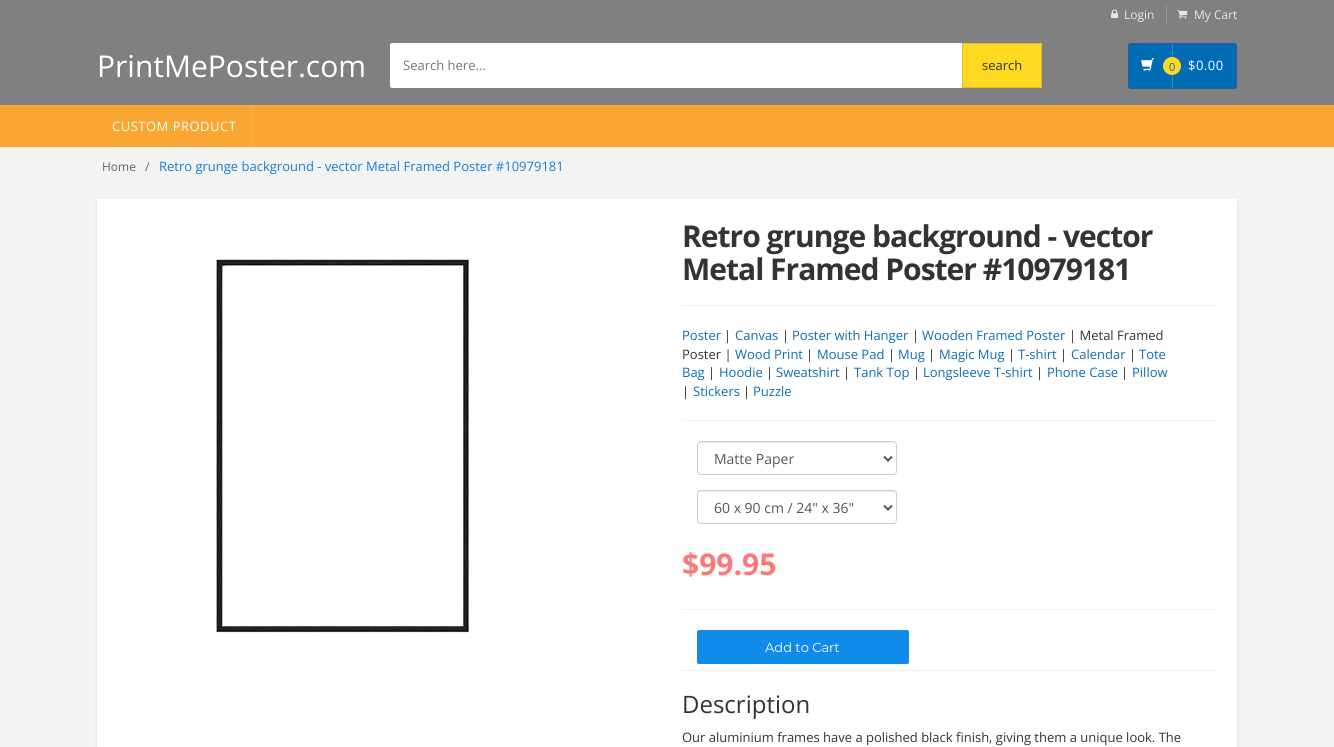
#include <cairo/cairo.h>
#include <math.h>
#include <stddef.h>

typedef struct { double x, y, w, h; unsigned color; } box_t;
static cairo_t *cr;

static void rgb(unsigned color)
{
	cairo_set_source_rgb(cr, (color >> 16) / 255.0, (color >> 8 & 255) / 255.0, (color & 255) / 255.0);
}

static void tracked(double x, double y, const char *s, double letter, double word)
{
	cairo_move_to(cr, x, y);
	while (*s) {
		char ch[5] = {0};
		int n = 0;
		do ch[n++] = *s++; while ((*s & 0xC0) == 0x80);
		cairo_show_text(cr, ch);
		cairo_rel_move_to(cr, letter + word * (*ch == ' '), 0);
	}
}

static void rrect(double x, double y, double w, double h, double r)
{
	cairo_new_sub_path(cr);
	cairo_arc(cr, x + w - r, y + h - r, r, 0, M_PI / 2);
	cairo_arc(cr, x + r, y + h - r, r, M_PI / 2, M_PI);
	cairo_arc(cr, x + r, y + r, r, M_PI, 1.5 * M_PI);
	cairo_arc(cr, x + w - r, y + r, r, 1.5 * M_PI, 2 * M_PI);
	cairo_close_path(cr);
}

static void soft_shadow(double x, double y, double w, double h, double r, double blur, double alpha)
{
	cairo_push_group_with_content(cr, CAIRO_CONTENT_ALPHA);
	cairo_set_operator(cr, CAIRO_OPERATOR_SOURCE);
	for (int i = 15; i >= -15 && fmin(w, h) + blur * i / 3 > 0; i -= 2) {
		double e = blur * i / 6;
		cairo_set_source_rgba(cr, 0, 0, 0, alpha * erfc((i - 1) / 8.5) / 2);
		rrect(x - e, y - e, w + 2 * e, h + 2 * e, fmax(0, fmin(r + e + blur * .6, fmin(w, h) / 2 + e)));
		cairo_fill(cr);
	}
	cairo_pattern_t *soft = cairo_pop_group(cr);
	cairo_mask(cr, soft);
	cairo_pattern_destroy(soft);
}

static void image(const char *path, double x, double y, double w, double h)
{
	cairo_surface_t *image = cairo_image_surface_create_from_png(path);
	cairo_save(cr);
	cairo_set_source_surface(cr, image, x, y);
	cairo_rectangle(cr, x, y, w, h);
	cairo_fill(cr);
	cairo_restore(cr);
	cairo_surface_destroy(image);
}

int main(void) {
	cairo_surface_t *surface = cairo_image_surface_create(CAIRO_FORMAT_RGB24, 1334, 747);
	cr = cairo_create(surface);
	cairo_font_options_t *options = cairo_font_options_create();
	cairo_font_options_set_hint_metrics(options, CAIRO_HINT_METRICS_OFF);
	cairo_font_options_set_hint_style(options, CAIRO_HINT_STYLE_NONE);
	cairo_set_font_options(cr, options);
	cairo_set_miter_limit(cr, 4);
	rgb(0xf3f3f3);
	cairo_paint(cr);
	rgb(0x808080);
	cairo_rectangle(cr, 0, 0, 1334, 105);
	cairo_fill(cr);
	rgb(0x999999);
	cairo_rectangle(cr, 1166, 6, 1, 18);
	cairo_fill(cr);
	image("img/1.png", 1111, 9, 8, 9);
	image("img/2.png", 1177, 10, 11, 9);
	rgb(0xffffff);
	rrect(390, 43, 652, 45, 2);
	cairo_fill(cr);
	rgb(0xfdd922);
	cairo_new_path(cr);
	cairo_move_to(cr, 962.5, 43.5);
	cairo_line_to(cr, 1039, 43.5);
	cairo_curve_to(cr, 1040.5, 43.5, 1041.5, 44.5, 1041.5, 46);
	cairo_line_to(cr, 1041.5, 85);
	cairo_curve_to(cr, 1041.5, 86.5, 1040.5, 87.5, 1039, 87.5);
	cairo_line_to(cr, 962.5, 87.5);
	cairo_close_path(cr);
	cairo_fill_preserve(cr);
	rgb(0xe0bc27);
	cairo_set_line_width(cr, 1);
	cairo_stroke(cr);
	rgb(0x006cb4);
	rrect(1128.5, 43.5, 108, 45, 2.5);
	cairo_fill_preserve(cr);
	rgb(0x24609c);
	cairo_stroke(cr);
	rgb(0x3389c3);
	cairo_rectangle(cr, 1172, 44, 1, 44);
	cairo_fill(cr);
	image("img/3.png", 1141, 58, 13, 13);
	rgb(0xfdd922);
	cairo_arc(cr, 1172, 66, 9, 0, 2 * M_PI);
	cairo_fill(cr);
	rgb(0xfaa632);
	cairo_rectangle(cr, 0, 105, 1334, 42);
	cairo_fill(cr);
	rgb(0xfbaf47);
	cairo_rectangle(cr, 251, 105, 1, 42);
	cairo_fill(cr);
	rgb(0x000000);
	soft_shadow(97, 201, 1140, 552, 0, 2, 0.08);
	rgb(0xffffff);
	cairo_rectangle(cr, 97, 199, 1140, 548);
	cairo_fill(cr);
	image("img/4.png", 216, 259, 253, 374);
	{
		static const box_t items[] = {
			{682, 305, 535, 1, 0xeeeeee},
			{682, 420, 535, 1, 0xf2f2f2},
			{682, 609, 535, 1, 0xf2f2f2},
		};
		for (size_t i = 0; i < sizeof items / sizeof *items; i++) {
			rgb(items[i].color);
			cairo_rectangle(cr, items[i].x, items[i].y, items[i].w, items[i].h);
			cairo_fill(cr);
		}
	}
	rgb(0xececec);
	cairo_new_path(cr);
	cairo_move_to(cr, 701, 443);
	cairo_line_to(cr, 893, 443);
	cairo_curve_to(cr, 895, 443, 896, 444, 896, 446);
	cairo_curve_to(cr, 896, 444, 895, 442, 893, 442);
	cairo_line_to(cr, 701, 442);
	cairo_curve_to(cr, 699, 442, 698, 444, 698, 446);
	cairo_curve_to(cr, 698, 444, 699, 443, 701, 443);
	cairo_close_path(cr);
	cairo_fill(cr);
	rrect(697.5, 441.5, 199, 33, 3.5);
	rgb(0xcccccc);
	cairo_stroke(cr);
	cairo_new_path(cr);
	cairo_move_to(cr, 884, 456.5);
	cairo_line_to(cr, 888, 460.5);
	cairo_line_to(cr, 892, 456.5);
	rgb(0x555555);
	cairo_set_line_width(cr, 2);
	cairo_stroke(cr);
	rgb(0xececec);
	cairo_new_path(cr);
	cairo_move_to(cr, 701, 492);
	cairo_line_to(cr, 893, 492);
	cairo_curve_to(cr, 895, 492, 896, 493, 896, 495);
	cairo_curve_to(cr, 896, 493, 895, 491, 893, 491);
	cairo_line_to(cr, 701, 491);
	cairo_curve_to(cr, 699, 491, 698, 493, 698, 495);
	cairo_curve_to(cr, 698, 493, 699, 492, 701, 492);
	cairo_close_path(cr);
	cairo_fill(cr);
	rrect(697.5, 490.5, 199, 33, 3.5);
	rgb(0xcccccc);
	cairo_set_line_width(cr, 1);
	cairo_stroke(cr);
	cairo_new_path(cr);
	cairo_move_to(cr, 884, 505.5);
	cairo_line_to(cr, 888, 509.5);
	cairo_line_to(cr, 892, 505.5);
	rgb(0x555555);
	cairo_set_line_width(cr, 2);
	cairo_stroke(cr);
	rgb(0x108bea);
	rrect(697, 630, 212, 34, 2);
	cairo_fill(cr);
	rgb(0xeeeeee);
	cairo_rectangle(cr, 682, 670, 535, 1);
	cairo_fill(cr);
	cairo_select_font_face(cr, "Open Sans", CAIRO_FONT_SLANT_NORMAL, CAIRO_FONT_WEIGHT_NORMAL);
	cairo_set_font_size(cr, 12);
	rgb(0xe6e6e6);
	cairo_move_to(cr, 1124, 19);
	cairo_show_text(cr, "Login");
	cairo_move_to(cr, 1194, 19);
	cairo_show_text(cr, "My Cart");
	cairo_set_font_size(cr, 30);
	rgb(0xffffff);
	cairo_move_to(cr, 97, 77);
	cairo_show_text(cr, "PrintMePoster.com");
	cairo_set_font_size(cr, 13);
	rgb(0x757575);
	cairo_move_to(cr, 403, 70);
	cairo_show_text(cr, "Search here...");
	rgb(0x333333);
	cairo_move_to(cr, 982, 70);
	cairo_show_text(cr, "search");
	rgb(0xffffff);
	tracked(1188, 70, "$0.00", 0.5, 0);
	cairo_set_font_size(cr, 11);
	rgb(0x0f6cb2);
	cairo_move_to(cr, 1169, 71);
	cairo_show_text(cr, "0");
	cairo_set_font_size(cr, 13);
	rgb(0xffffff);
	tracked(112, 131, "CUSTOM PRODUCT", 0.5, 0);
	cairo_set_font_size(cr, 12);
	rgb(0x666666);
	cairo_move_to(cr, 102, 171);
	cairo_show_text(cr, "Home");
	cairo_move_to(cr, 145, 171);
	cairo_show_text(cr, "/");
	cairo_set_font_size(cr, 13);
	rgb(0x157ed2);
	cairo_move_to(cr, 159, 171);
	cairo_show_text(cr, "Retro grunge background - vector Metal Framed Poster #10979181");
	cairo_select_font_face(cr, "Open Sans", CAIRO_FONT_SLANT_NORMAL, CAIRO_FONT_WEIGHT_BOLD);
	cairo_set_font_size(cr, 30);
	rgb(0x333333);
	tracked(682, 247, "Retro grunge background - vector", -1, 0);
	tracked(682, 280, "Metal Framed Poster #10979181", -1, 0);
	cairo_select_font_face(cr, "Open Sans", CAIRO_FONT_SLANT_NORMAL, CAIRO_FONT_WEIGHT_NORMAL);
	cairo_set_font_size(cr, 13);
	rgb(0x0f6cb2);
	cairo_move_to(cr, 682, 340);
	cairo_show_text(cr, "Poster");
	rgb(0x333333);
	cairo_move_to(cr, 724, 340);
	cairo_show_text(cr, "|");
	rgb(0x0f6cb2);
	cairo_move_to(cr, 735, 340);
	cairo_show_text(cr, "Canvas");
	rgb(0x333333);
	cairo_move_to(cr, 782, 340);
	cairo_show_text(cr, "|");
	rgb(0x0f6cb2);
	cairo_move_to(cr, 792, 340);
	cairo_show_text(cr, "Poster with Hanger");
	rgb(0x333333);
	cairo_move_to(cr, 912, 340);
	cairo_show_text(cr, "|");
	rgb(0x0f6cb2);
	cairo_move_to(cr, 922, 340);
	cairo_show_text(cr, "Wooden Framed Poster");
	rgb(0x333333);
	cairo_move_to(cr, 1069, 340);
	cairo_show_text(cr, "| Metal Framed");
	cairo_move_to(cr, 682, 359);
	cairo_show_text(cr, "Poster |");
	rgb(0x0f6cb2);
	cairo_move_to(cr, 735, 359);
	cairo_show_text(cr, "Wood Print");
	rgb(0x333333);
	cairo_move_to(cr, 806, 359);
	cairo_show_text(cr, "|");
	rgb(0x0f6cb2);
	cairo_move_to(cr, 817, 359);
	cairo_show_text(cr, "Mouse Pad");
	rgb(0x333333);
	cairo_move_to(cr, 888, 359);
	cairo_show_text(cr, "|");
	rgb(0x0f6cb2);
	cairo_move_to(cr, 898, 359);
	cairo_show_text(cr, "Mug");
	rgb(0x333333);
	cairo_move_to(cr, 928, 359);
	cairo_show_text(cr, "|");
	rgb(0x0f6cb2);
	cairo_move_to(cr, 939, 359);
	cairo_show_text(cr, "Magic Mug");
	rgb(0x333333);
	cairo_move_to(cr, 1008, 359);
	cairo_show_text(cr, "|");
	rgb(0x0f6cb2);
	cairo_move_to(cr, 1018, 359);
	cairo_show_text(cr, "T-shirt");
	rgb(0x333333);
	cairo_move_to(cr, 1060, 359);
	cairo_show_text(cr, "|");
	rgb(0x0f6cb2);
	cairo_move_to(cr, 1071, 359);
	cairo_show_text(cr, "Calendar");
	rgb(0x333333);
	cairo_move_to(cr, 1129, 359);
	cairo_show_text(cr, "|");
	rgb(0x0f6cb2);
	cairo_move_to(cr, 1139, 359);
	cairo_show_text(cr, "Tote");
	cairo_move_to(cr, 682, 377);
	cairo_show_text(cr, "Bag");
	rgb(0x333333);
	cairo_move_to(cr, 708, 377);
	cairo_show_text(cr, "|");
	rgb(0x0f6cb2);
	cairo_move_to(cr, 719, 377);
	cairo_show_text(cr, "Hoodie");
	rgb(0x333333);
	cairo_move_to(cr, 766, 377);
	cairo_show_text(cr, "|");
	rgb(0x0f6cb2);
	cairo_move_to(cr, 776, 377);
	cairo_show_text(cr, "Sweatshirt");
	rgb(0x333333);
	cairo_move_to(cr, 843, 377);
	cairo_show_text(cr, "|");
	rgb(0x0f6cb2);
	cairo_move_to(cr, 854, 377);
	cairo_show_text(cr, "Tank Top");
	rgb(0x333333);
	cairo_move_to(cr, 913, 377);
	cairo_show_text(cr, "|");
	rgb(0x0f6cb2);
	cairo_move_to(cr, 923, 377);
	cairo_show_text(cr, "Longsleeve T-shirt");
	rgb(0x333333);
	cairo_move_to(cr, 1036, 377);
	cairo_show_text(cr, "|");
	rgb(0x0f6cb2);
	cairo_move_to(cr, 1047, 377);
	cairo_show_text(cr, "Phone Case");
	rgb(0x333333);
	cairo_move_to(cr, 1121, 377);
	cairo_show_text(cr, "|");
	rgb(0x0f6cb2);
	cairo_move_to(cr, 1132, 377);
	cairo_show_text(cr, "Pillow");
	rgb(0x333333);
	cairo_move_to(cr, 682, 396);
	cairo_show_text(cr, "|");
	rgb(0x0f6cb2);
	cairo_move_to(cr, 693, 396);
	cairo_show_text(cr, "Stickers");
	rgb(0x333333);
	cairo_move_to(cr, 743, 396);
	cairo_show_text(cr, "|");
	rgb(0x0f6cb2);
	cairo_move_to(cr, 753, 396);
	cairo_show_text(cr, "Puzzle");
	cairo_set_font_size(cr, 14);
	rgb(0x555555);
	cairo_move_to(cr, 714, 464);
	cairo_show_text(cr, "Matte Paper");
	cairo_move_to(cr, 714, 513);
	cairo_show_text(cr, "60 x 90 cm / 24\" x 36\"");
	cairo_select_font_face(cr, "Open Sans", CAIRO_FONT_SLANT_NORMAL, CAIRO_FONT_WEIGHT_BOLD);
	cairo_set_font_size(cr, 30);
	rgb(0xff7878);
	cairo_move_to(cr, 682, 575);
	cairo_show_text(cr, "$99.95");
	cairo_select_font_face(cr, "Montserrat", CAIRO_FONT_SLANT_NORMAL, CAIRO_FONT_WEIGHT_NORMAL);
	cairo_set_font_size(cr, 13);
	rgb(0xffffff);
	cairo_move_to(cr, 765, 652);
	cairo_show_text(cr, "Add to Cart");
	cairo_select_font_face(cr, "Open Sans", CAIRO_FONT_SLANT_NORMAL, CAIRO_FONT_WEIGHT_NORMAL);
	cairo_set_font_size(cr, 24);
	rgb(0x333333);
	cairo_move_to(cr, 682, 713);
	cairo_show_text(cr, "Description");
	cairo_set_font_size(cr, 13);
	cairo_move_to(cr, 682, 742);
	cairo_show_text(cr, "Our aluminium frames have a polished black finish, giving them a unique look. The");
	cairo_surface_write_to_png(surface, "page.png");
	cairo_font_options_destroy(options);
	cairo_destroy(cr);
	cairo_surface_destroy(surface);
	return 0;
}
